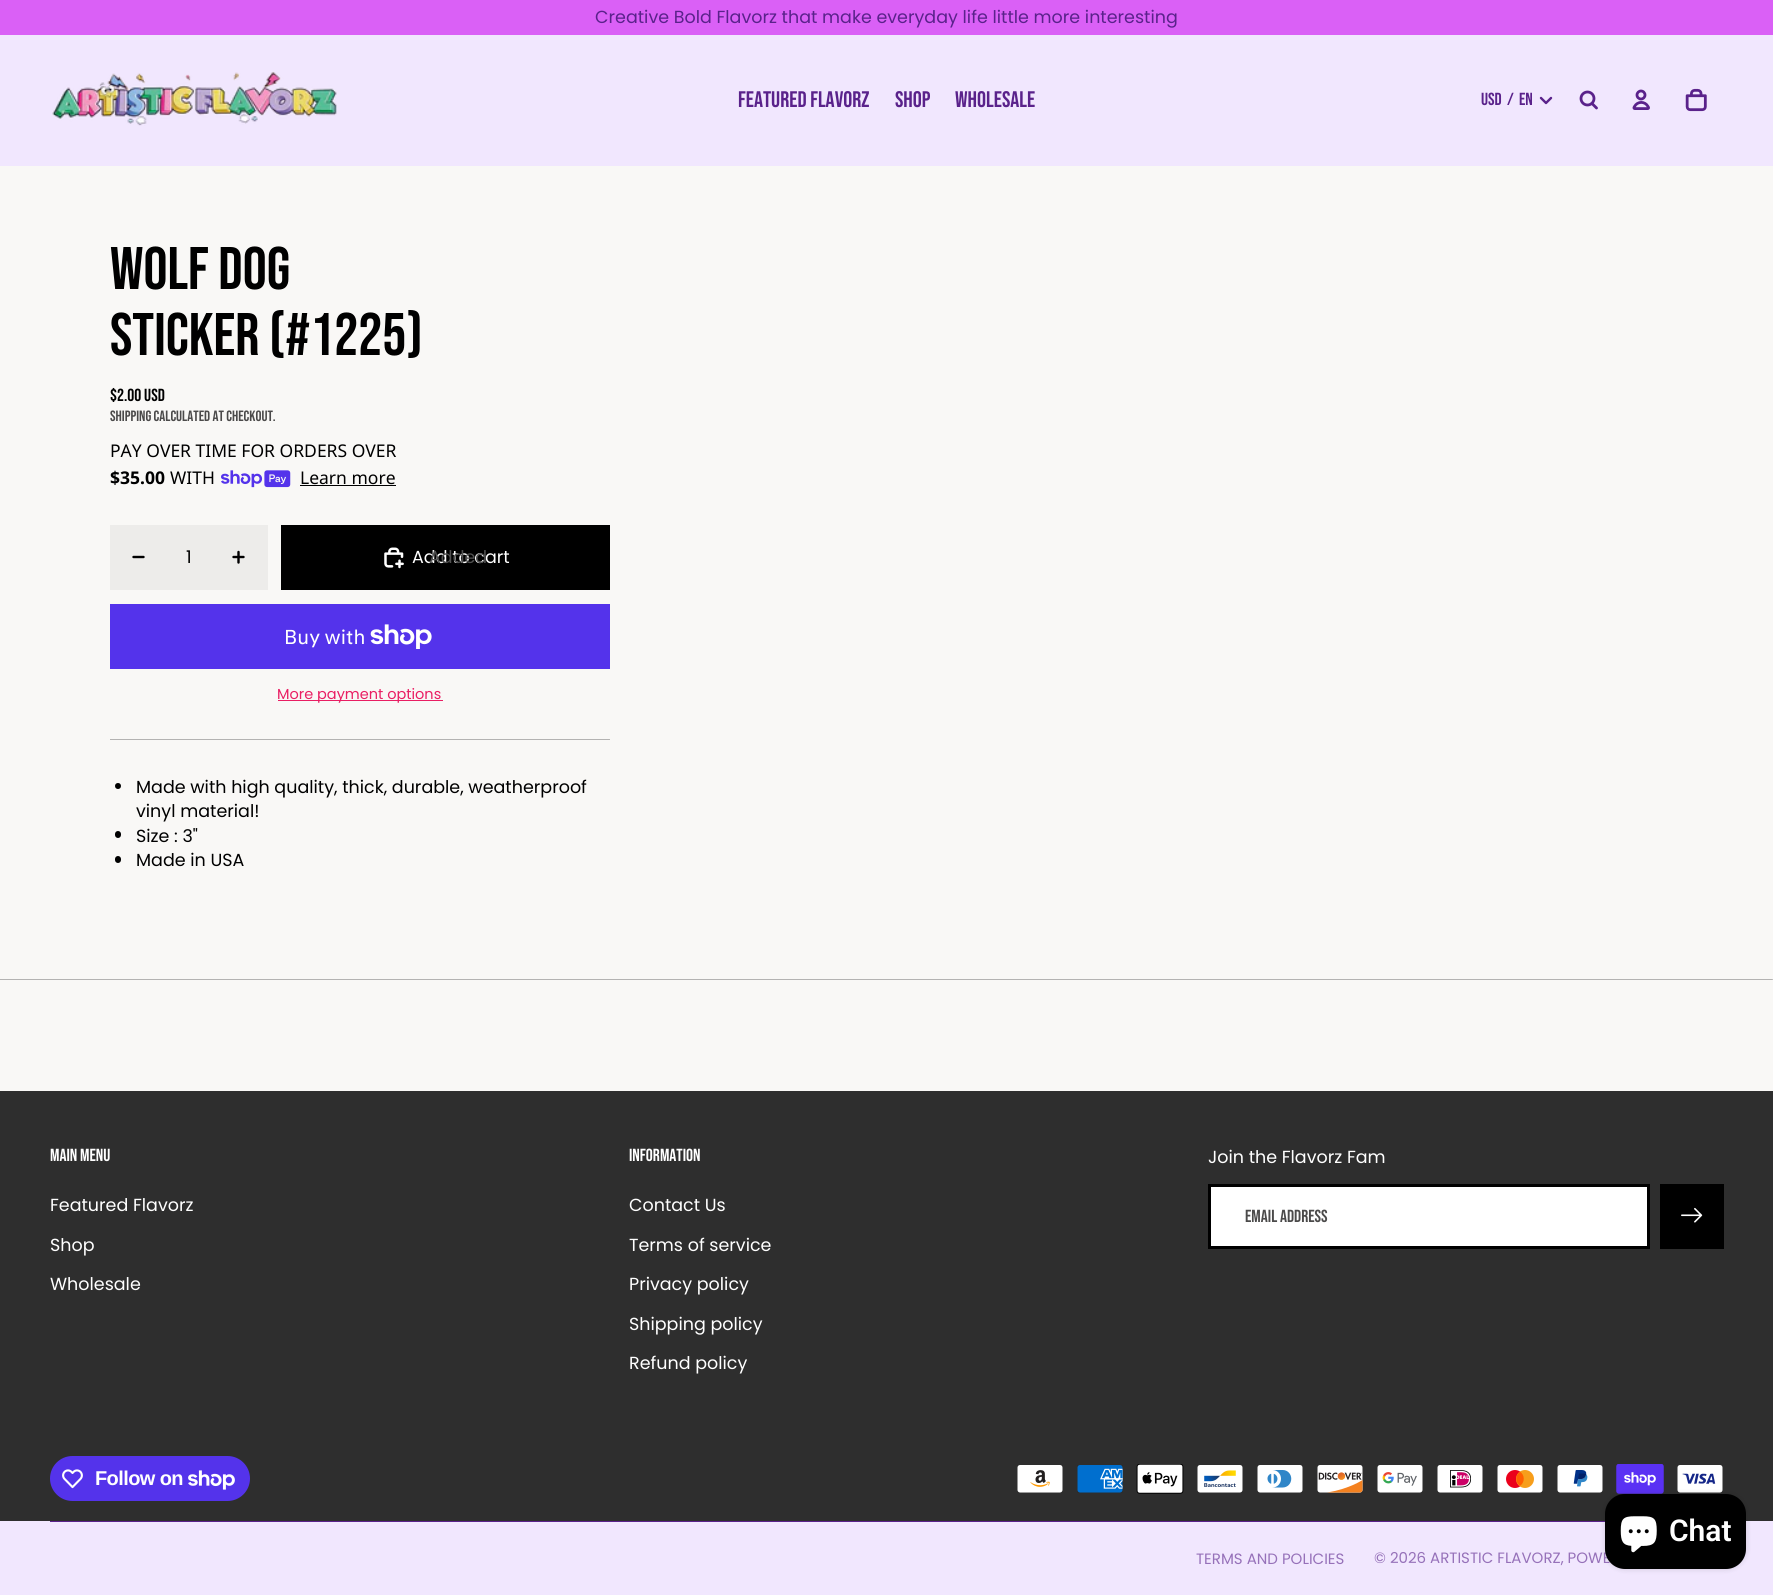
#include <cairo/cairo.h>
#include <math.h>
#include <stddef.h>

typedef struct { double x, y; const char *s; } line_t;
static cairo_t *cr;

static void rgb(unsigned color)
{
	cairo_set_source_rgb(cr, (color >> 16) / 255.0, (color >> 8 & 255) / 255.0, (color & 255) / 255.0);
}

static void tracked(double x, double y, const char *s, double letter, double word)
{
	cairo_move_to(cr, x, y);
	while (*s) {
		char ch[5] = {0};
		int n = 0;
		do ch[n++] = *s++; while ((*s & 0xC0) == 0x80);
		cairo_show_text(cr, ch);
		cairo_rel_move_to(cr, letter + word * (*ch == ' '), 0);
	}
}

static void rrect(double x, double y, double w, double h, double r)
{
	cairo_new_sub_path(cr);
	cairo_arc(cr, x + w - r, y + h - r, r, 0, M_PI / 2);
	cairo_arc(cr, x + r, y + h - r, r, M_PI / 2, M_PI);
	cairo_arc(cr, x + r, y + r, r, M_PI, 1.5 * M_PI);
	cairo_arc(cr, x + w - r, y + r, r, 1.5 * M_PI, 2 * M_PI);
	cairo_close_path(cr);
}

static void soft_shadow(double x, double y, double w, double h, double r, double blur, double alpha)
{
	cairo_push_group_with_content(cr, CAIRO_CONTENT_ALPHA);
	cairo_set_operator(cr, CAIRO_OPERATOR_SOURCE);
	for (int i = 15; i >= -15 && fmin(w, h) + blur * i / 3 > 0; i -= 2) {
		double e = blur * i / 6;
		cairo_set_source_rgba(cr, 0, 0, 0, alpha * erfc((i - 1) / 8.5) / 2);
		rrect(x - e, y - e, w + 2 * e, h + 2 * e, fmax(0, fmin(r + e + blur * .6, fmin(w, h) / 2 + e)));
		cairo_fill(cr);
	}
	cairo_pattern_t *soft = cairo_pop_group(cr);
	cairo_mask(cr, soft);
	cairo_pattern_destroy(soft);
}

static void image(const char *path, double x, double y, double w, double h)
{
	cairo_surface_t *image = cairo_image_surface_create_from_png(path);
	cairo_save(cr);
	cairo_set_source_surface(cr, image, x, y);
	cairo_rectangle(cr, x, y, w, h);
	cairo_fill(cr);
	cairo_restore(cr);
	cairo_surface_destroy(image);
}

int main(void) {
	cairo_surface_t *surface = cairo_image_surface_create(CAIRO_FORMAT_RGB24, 1773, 1595);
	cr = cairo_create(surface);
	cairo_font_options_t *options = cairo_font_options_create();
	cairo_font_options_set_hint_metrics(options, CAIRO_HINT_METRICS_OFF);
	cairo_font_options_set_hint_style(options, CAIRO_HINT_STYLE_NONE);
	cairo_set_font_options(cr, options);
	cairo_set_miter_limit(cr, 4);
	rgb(0xf9f8f6);
	cairo_paint(cr);
	rgb(0xda60f6);
	cairo_rectangle(cr, 0, 0, 1773, 35);
	cairo_fill(cr);
	rgb(0xf1e7fe);
	cairo_rectangle(cr, 0, 35, 1773, 131);
	cairo_fill(cr);
	image("img/1.png", 52, 71, 285, 55);
	cairo_new_path(cr);
	cairo_move_to(cr, 1551, 98);
	cairo_line_to(cr, 1546, 103);
	cairo_line_to(cr, 1541, 98);
	rgb(0x5a228b);
	cairo_set_line_width(cr, 2.4);
	cairo_set_line_cap(cr, CAIRO_LINE_CAP_ROUND);
	cairo_set_line_join(cr, CAIRO_LINE_JOIN_ROUND);
	cairo_stroke(cr);
	cairo_arc(cr, 1587.5, 98.5, 6.5, 0, 2 * M_PI);
	cairo_set_line_width(cr, 2.8);
	cairo_set_line_cap(cr, CAIRO_LINE_CAP_BUTT);
	cairo_set_line_join(cr, CAIRO_LINE_JOIN_MITER);
	cairo_stroke(cr);
	cairo_new_path(cr);
	cairo_move_to(cr, 1592, 103.5);
	cairo_line_to(cr, 1596.5, 108);
	cairo_set_line_cap(cr, CAIRO_LINE_CAP_ROUND);
	cairo_set_line_join(cr, CAIRO_LINE_JOIN_ROUND);
	cairo_stroke(cr);
	image("img/2.png", 1632, 89, 18, 21);
	image("img/3.png", 1685, 88, 22, 24);
	image("img/4.png", 221, 470, 70, 18);
	rgb(0x000000);
	cairo_rectangle(cr, 300, 485, 96, 1);
	cairo_fill(cr);
	rgb(0xedecea);
	cairo_rectangle(cr, 110, 525, 158, 65);
	cairo_fill(cr);
	cairo_new_path(cr);
	cairo_move_to(cr, 133.5, 557);
	cairo_line_to(cr, 143.5, 557);
	rgb(0x000000);
	cairo_set_line_width(cr, 2.4);
	cairo_set_line_join(cr, CAIRO_LINE_JOIN_MITER);
	cairo_stroke(cr);
	cairo_new_path(cr);
	cairo_move_to(cr, 233.5, 557);
	cairo_line_to(cr, 243.5, 557);
	cairo_move_to(cr, 238.5, 552);
	cairo_line_to(cr, 238.5, 562.5);
	cairo_stroke(cr);
	cairo_rectangle(cr, 281, 525, 329, 65);
	cairo_fill(cr);
	image("img/5.png", 384, 547, 20, 22);
	rgb(0x5433eb);
	cairo_rectangle(cr, 110, 604, 500, 65);
	cairo_fill(cr);
	image("img/6.png", 370, 624, 62, 25);
	rgb(0xe91e63);
	cairo_rectangle(cr, 278, 700, 165, 1);
	cairo_fill(cr);
	rgb(0xb3b3b1);
	cairo_new_path(cr);
	cairo_move_to(cr, 610, 739);
	cairo_line_to(cr, 610, 740);
	cairo_line_to(cr, 609, 739);
	cairo_close_path(cr);
	cairo_fill(cr);
	cairo_set_source_rgba(cr, 0, 0, 0, 0.28);
	cairo_new_path(cr);
	cairo_move_to(cr, 610, 740);
	cairo_line_to(cr, 110, 740);
	cairo_line_to(cr, 110, 739);
	cairo_line_to(cr, 609, 739);
	cairo_close_path(cr);
	cairo_fill(cr);
	rgb(0x000000);
	cairo_arc(cr, 118, 786, 3, 0, 2 * M_PI);
	cairo_fill(cr);
	rrect(115, 831, 6, 7, 3);
	cairo_fill(cr);
	rrect(115, 856, 6, 7, 3);
	cairo_fill(cr);
	rgb(0xb3b3b1);
	cairo_new_path(cr);
	cairo_move_to(cr, 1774, 979);
	cairo_line_to(cr, 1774, 980);
	cairo_line_to(cr, 1772.5, 979);
	cairo_close_path(cr);
	cairo_fill(cr);
	cairo_set_source_rgba(cr, 0, 0, 0, 0.28);
	cairo_new_path(cr);
	cairo_move_to(cr, 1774, 980);
	cairo_line_to(cr, 0, 980);
	cairo_line_to(cr, 0, 979);
	cairo_line_to(cr, 1772, 979);
	cairo_close_path(cr);
	cairo_fill(cr);
	rgb(0x2e2e2e);
	cairo_rectangle(cr, 0, 1091, 1773, 430);
	cairo_fill(cr);
	rgb(0xffffff);
	cairo_rectangle(cr, 1209.5, 1185.5, 439, 62);
	cairo_fill_preserve(cr);
	rgb(0x000000);
	cairo_set_line_width(cr, 3);
	cairo_set_line_cap(cr, CAIRO_LINE_CAP_BUTT);
	cairo_stroke(cr);
	cairo_rectangle(cr, 1660, 1184, 64, 65);
	cairo_fill(cr);
	image("img/7.png", 1681, 1207, 22, 16);
	rgb(0x5433eb);
	rrect(50, 1456, 200, 45, 22.5);
	cairo_fill(cr);
	image("img/8.png", 62, 1469, 21, 20);
	image("img/9.png", 188, 1470, 47, 20);
	image("img/10.png", 1017, 1465, 46, 28);
	image("img/11.png", 1077, 1465, 46, 28);
	image("img/12.png", 1136, 1464, 48, 30);
	image("img/13.png", 1197, 1465, 46, 28);
	image("img/14.png", 1257, 1465, 46, 28);
	image("img/15.png", 1317, 1465, 46, 28);
	image("img/16.png", 1377, 1465, 46, 28);
	image("img/17.png", 1437, 1465, 46, 28);
	image("img/18.png", 1497, 1465, 46, 28);
	image("img/19.png", 1557, 1465, 46, 28);
	image("img/20.png", 1616, 1464, 48, 30);
	image("img/21.png", 1677, 1465, 46, 28);
	rgb(0xf1e7fe);
	cairo_rectangle(cr, 0, 1521, 1773, 74);
	cairo_fill(cr);
	rgb(0x5a228b);
	cairo_rectangle(cr, 50, 1521, 1555, 1);
	cairo_fill(cr);
	rgb(0x000000);
	soft_shadow(1605, 1494, 141, 75, 20, 3, 0.15);
	cairo_select_font_face(cr, "Poppins", CAIRO_FONT_SLANT_NORMAL, CAIRO_FONT_WEIGHT_NORMAL);
	cairo_set_font_size(cr, 17.5);
	rgb(0x5a228b);
	cairo_move_to(cr, 595, 23);
	cairo_show_text(cr, "Creative Bold Flavorz that make everyday life little more interesting");
	cairo_select_font_face(cr, "Bebas Neue", CAIRO_FONT_SLANT_NORMAL, CAIRO_FONT_WEIGHT_NORMAL);
	cairo_set_font_size(cr, 22.5);
	{
		static const line_t items[] = {
			{738, 107, "FEATURED FLAVORZ"},
			{895, 107, "SHOP"},
			{955, 107, "WHOLESALE"},
		};
		for (size_t i = 0; i < sizeof items / sizeof *items; i++) {
			cairo_move_to(cr, items[i].x, items[i].y);
			cairo_show_text(cr, items[i].s);
		}
	}
	cairo_set_font_size(cr, 17.5);
	{
		static const line_t items[] = {
			{1481, 105, "USD"},
			{1507, 105, "/"},
			{1519, 105, "EN"},
		};
		for (size_t i = 0; i < sizeof items / sizeof *items; i++) {
			cairo_move_to(cr, items[i].x, items[i].y);
			cairo_show_text(cr, items[i].s);
		}
	}
	cairo_set_font_size(cr, 60);
	rgb(0x000000);
	cairo_move_to(cr, 110, 289);
	cairo_show_text(cr, "Wolf Dog");
	cairo_move_to(cr, 110, 355);
	cairo_show_text(cr, "Sticker (#1225)");
	cairo_set_font_size(cr, 17.5);
	cairo_move_to(cr, 110, 401);
	cairo_show_text(cr, "$2.00 USD");
	cairo_set_font_size(cr, 14.9);
	rgb(0x4b4a4a);
	cairo_move_to(cr, 110, 421);
	cairo_show_text(cr, "SHIPPING CALCULATED AT CHECKOUT.");
	cairo_select_font_face(cr, "Noto Sans", CAIRO_FONT_SLANT_NORMAL, CAIRO_FONT_WEIGHT_NORMAL);
	cairo_set_font_size(cr, 17.5);
	rgb(0x000000);
	cairo_move_to(cr, 110, 457);
	cairo_show_text(cr, "PAY OVER TIME FOR ORDERS OVER");
	cairo_select_font_face(cr, "Noto Sans", CAIRO_FONT_SLANT_NORMAL, CAIRO_FONT_WEIGHT_BOLD);
	cairo_move_to(cr, 110, 484);
	cairo_show_text(cr, "$35.00");
	cairo_select_font_face(cr, "Noto Sans", CAIRO_FONT_SLANT_NORMAL, CAIRO_FONT_WEIGHT_NORMAL);
	cairo_move_to(cr, 170, 484);
	cairo_show_text(cr, "WITH");
	cairo_move_to(cr, 300, 484);
	cairo_show_text(cr, "Learn more");
	cairo_select_font_face(cr, "Poppins", CAIRO_FONT_SLANT_NORMAL, CAIRO_FONT_WEIGHT_NORMAL);
	cairo_move_to(cr, 186, 563);
	cairo_show_text(cr, "1");
	rgb(0xffffff);
	cairo_move_to(cr, 412, 563);
	cairo_show_text(cr, "Add to cart");
	rgb(0x505050);
	cairo_move_to(cr, 429, 563);
	cairo_show_text(cr, "Added");
	cairo_select_font_face(cr, "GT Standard", CAIRO_FONT_SLANT_NORMAL, CAIRO_FONT_WEIGHT_NORMAL);
	cairo_set_font_size(cr, 20);
	rgb(0xffffff);
	cairo_move_to(cr, 284, 644);
	cairo_show_text(cr, "Buy with");
	cairo_select_font_face(cr, "Poppins", CAIRO_FONT_SLANT_NORMAL, CAIRO_FONT_WEIGHT_NORMAL);
	cairo_set_font_size(cr, 14.5);
	rgb(0xe91e63);
	cairo_move_to(cr, 277, 699);
	cairo_show_text(cr, "More payment options");
	cairo_set_font_size(cr, 17.5);
	rgb(0x000000);
	{
		static const line_t items[] = {
			{136, 793, "Made with high quality, thick, durable, weatherproof"},
			{136, 817, "vinyl material!"},
			{136, 842, "Size : 3\""},
			{136, 866, "Made in USA"},
		};
		for (size_t i = 0; i < sizeof items / sizeof *items; i++) {
			cairo_move_to(cr, items[i].x, items[i].y);
			cairo_show_text(cr, items[i].s);
		}
	}
	cairo_select_font_face(cr, "Bebas Neue", CAIRO_FONT_SLANT_NORMAL, CAIRO_FONT_WEIGHT_NORMAL);
	rgb(0xffffff);
	cairo_move_to(cr, 50, 1161);
	cairo_show_text(cr, "MAIN MENU");
	cairo_select_font_face(cr, "Poppins", CAIRO_FONT_SLANT_NORMAL, CAIRO_FONT_WEIGHT_NORMAL);
	{
		static const line_t items[] = {
			{50, 1211, "Featured Flavorz"},
			{50, 1251, "Shop"},
			{50, 1290, "Wholesale"},
		};
		for (size_t i = 0; i < sizeof items / sizeof *items; i++) {
			cairo_move_to(cr, items[i].x, items[i].y);
			cairo_show_text(cr, items[i].s);
		}
	}
	cairo_select_font_face(cr, "Bebas Neue", CAIRO_FONT_SLANT_NORMAL, CAIRO_FONT_WEIGHT_NORMAL);
	cairo_move_to(cr, 629, 1161);
	cairo_show_text(cr, "INFORMATION");
	cairo_select_font_face(cr, "Poppins", CAIRO_FONT_SLANT_NORMAL, CAIRO_FONT_WEIGHT_NORMAL);
	{
		static const line_t items[] = {
			{629, 1211, "Contact Us"},
			{629, 1251, "Terms of service"},
			{629, 1290, "Privacy policy"},
			{629, 1330, "Shipping policy"},
			{629, 1369, "Refund policy"},
			{1208, 1163, "Join the Flavorz Fam"},
		};
		for (size_t i = 0; i < sizeof items / sizeof *items; i++) {
			cairo_move_to(cr, items[i].x, items[i].y);
			cairo_show_text(cr, items[i].s);
		}
	}
	cairo_select_font_face(cr, "Bebas Neue", CAIRO_FONT_SLANT_NORMAL, CAIRO_FONT_WEIGHT_NORMAL);
	rgb(0x4b4a4a);
	cairo_move_to(cr, 1245, 1222);
	cairo_show_text(cr, "EMAIL ADDRESS");
	cairo_select_font_face(cr, "Liberation Sans", CAIRO_FONT_SLANT_NORMAL, CAIRO_FONT_WEIGHT_BOLD);
	cairo_set_font_size(cr, 20);
	rgb(0xffffff);
	tracked(95, 1485, "Follow on", -0.6, 0);
	cairo_select_font_face(cr, "Poppins", CAIRO_FONT_SLANT_NORMAL, CAIRO_FONT_WEIGHT_NORMAL);
	cairo_set_font_size(cr, 15);
	rgb(0x9671b9);
	cairo_move_to(cr, 1196, 1564);
	cairo_show_text(cr, "TERMS AND POLICIES");
	cairo_move_to(cr, 1374, 1563);
	cairo_show_text(cr, "© 2026 ARTISTIC FLAVORZ, POWE");
	rgb(0x000000);
	rrect(1605, 1494, 141, 75, 20);
	cairo_fill(cr);
	cairo_select_font_face(cr, "Roboto SemiBold", CAIRO_FONT_SLANT_NORMAL, CAIRO_FONT_WEIGHT_NORMAL);
	cairo_set_font_size(cr, 30);
	rgb(0xffffff);
	cairo_move_to(cr, 1669, 1541);
	cairo_show_text(cr, "Chat");
	image("img/22.png", 1620, 1516, 37, 37);
	cairo_surface_write_to_png(surface, "page.png");
	cairo_font_options_destroy(options);
	cairo_destroy(cr);
	cairo_surface_destroy(surface);
	return 0;
}
